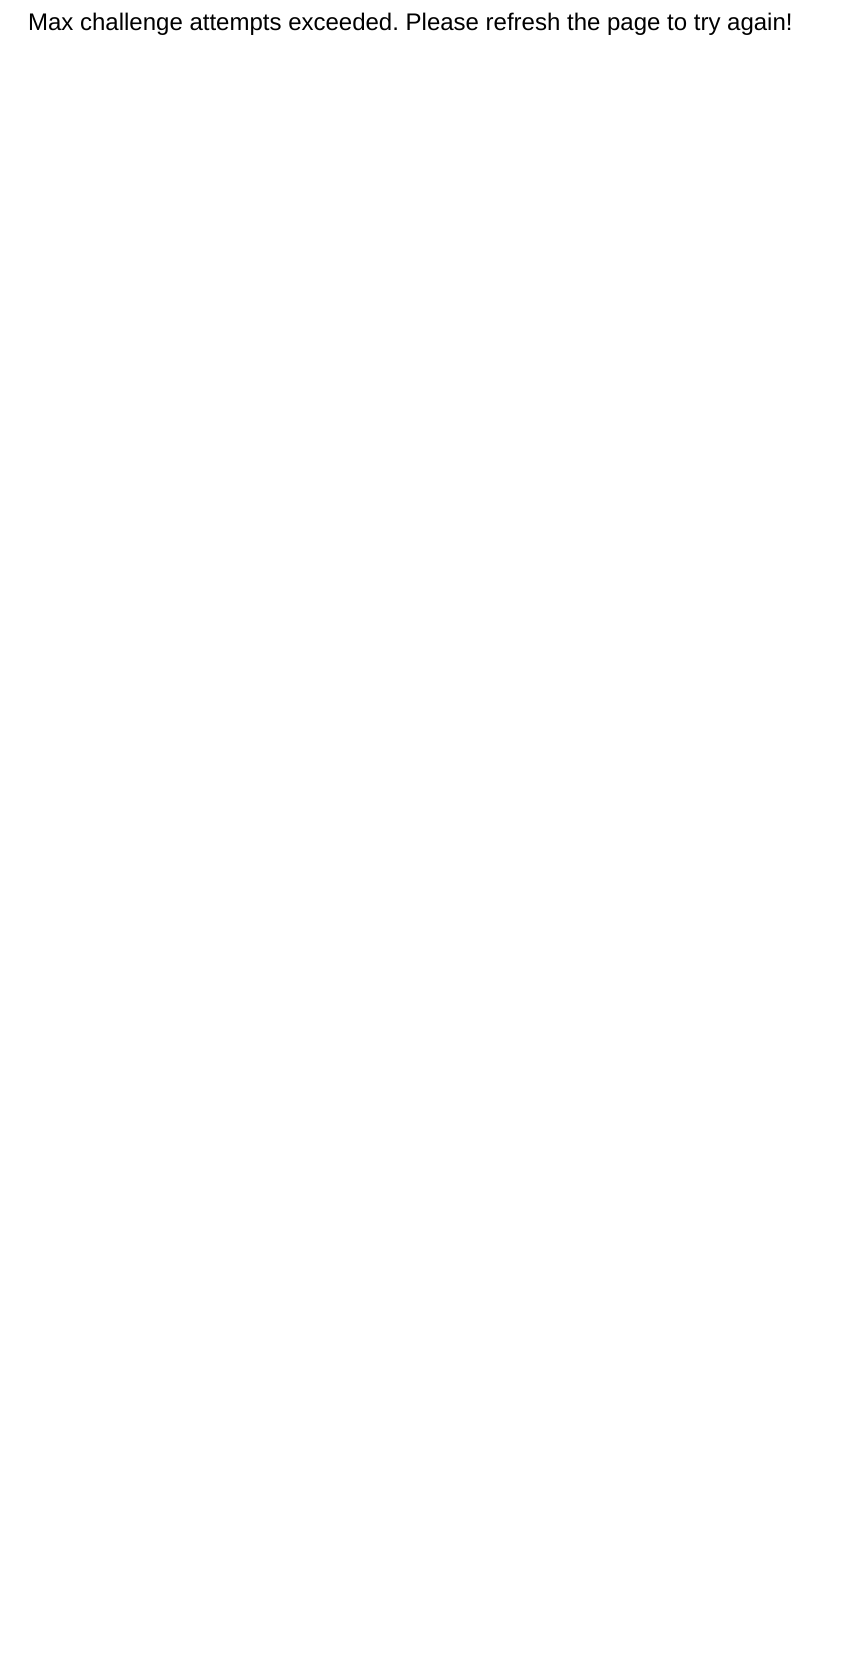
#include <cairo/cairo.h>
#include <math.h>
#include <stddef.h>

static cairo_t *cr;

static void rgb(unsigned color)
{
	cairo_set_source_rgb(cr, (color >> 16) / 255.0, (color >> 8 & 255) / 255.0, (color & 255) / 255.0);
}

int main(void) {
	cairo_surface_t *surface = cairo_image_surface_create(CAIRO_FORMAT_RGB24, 860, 1680);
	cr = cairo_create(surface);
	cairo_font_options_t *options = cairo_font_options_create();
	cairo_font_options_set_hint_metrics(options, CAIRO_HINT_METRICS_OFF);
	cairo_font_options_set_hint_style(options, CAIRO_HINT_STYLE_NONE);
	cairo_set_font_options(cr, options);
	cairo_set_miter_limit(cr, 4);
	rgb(0xffffff);
	cairo_paint(cr);
	cairo_select_font_face(cr, "Liberation Sans", CAIRO_FONT_SLANT_NORMAL, CAIRO_FONT_WEIGHT_NORMAL);
	cairo_set_font_size(cr, 24);
	rgb(0x000000);
	cairo_move_to(cr, 28, 30);
	cairo_show_text(cr, "Max challenge attempts exceeded. Please refresh the page to try again!");
	cairo_surface_write_to_png(surface, "page.png");
	cairo_font_options_destroy(options);
	cairo_destroy(cr);
	cairo_surface_destroy(surface);
	return 0;
}
